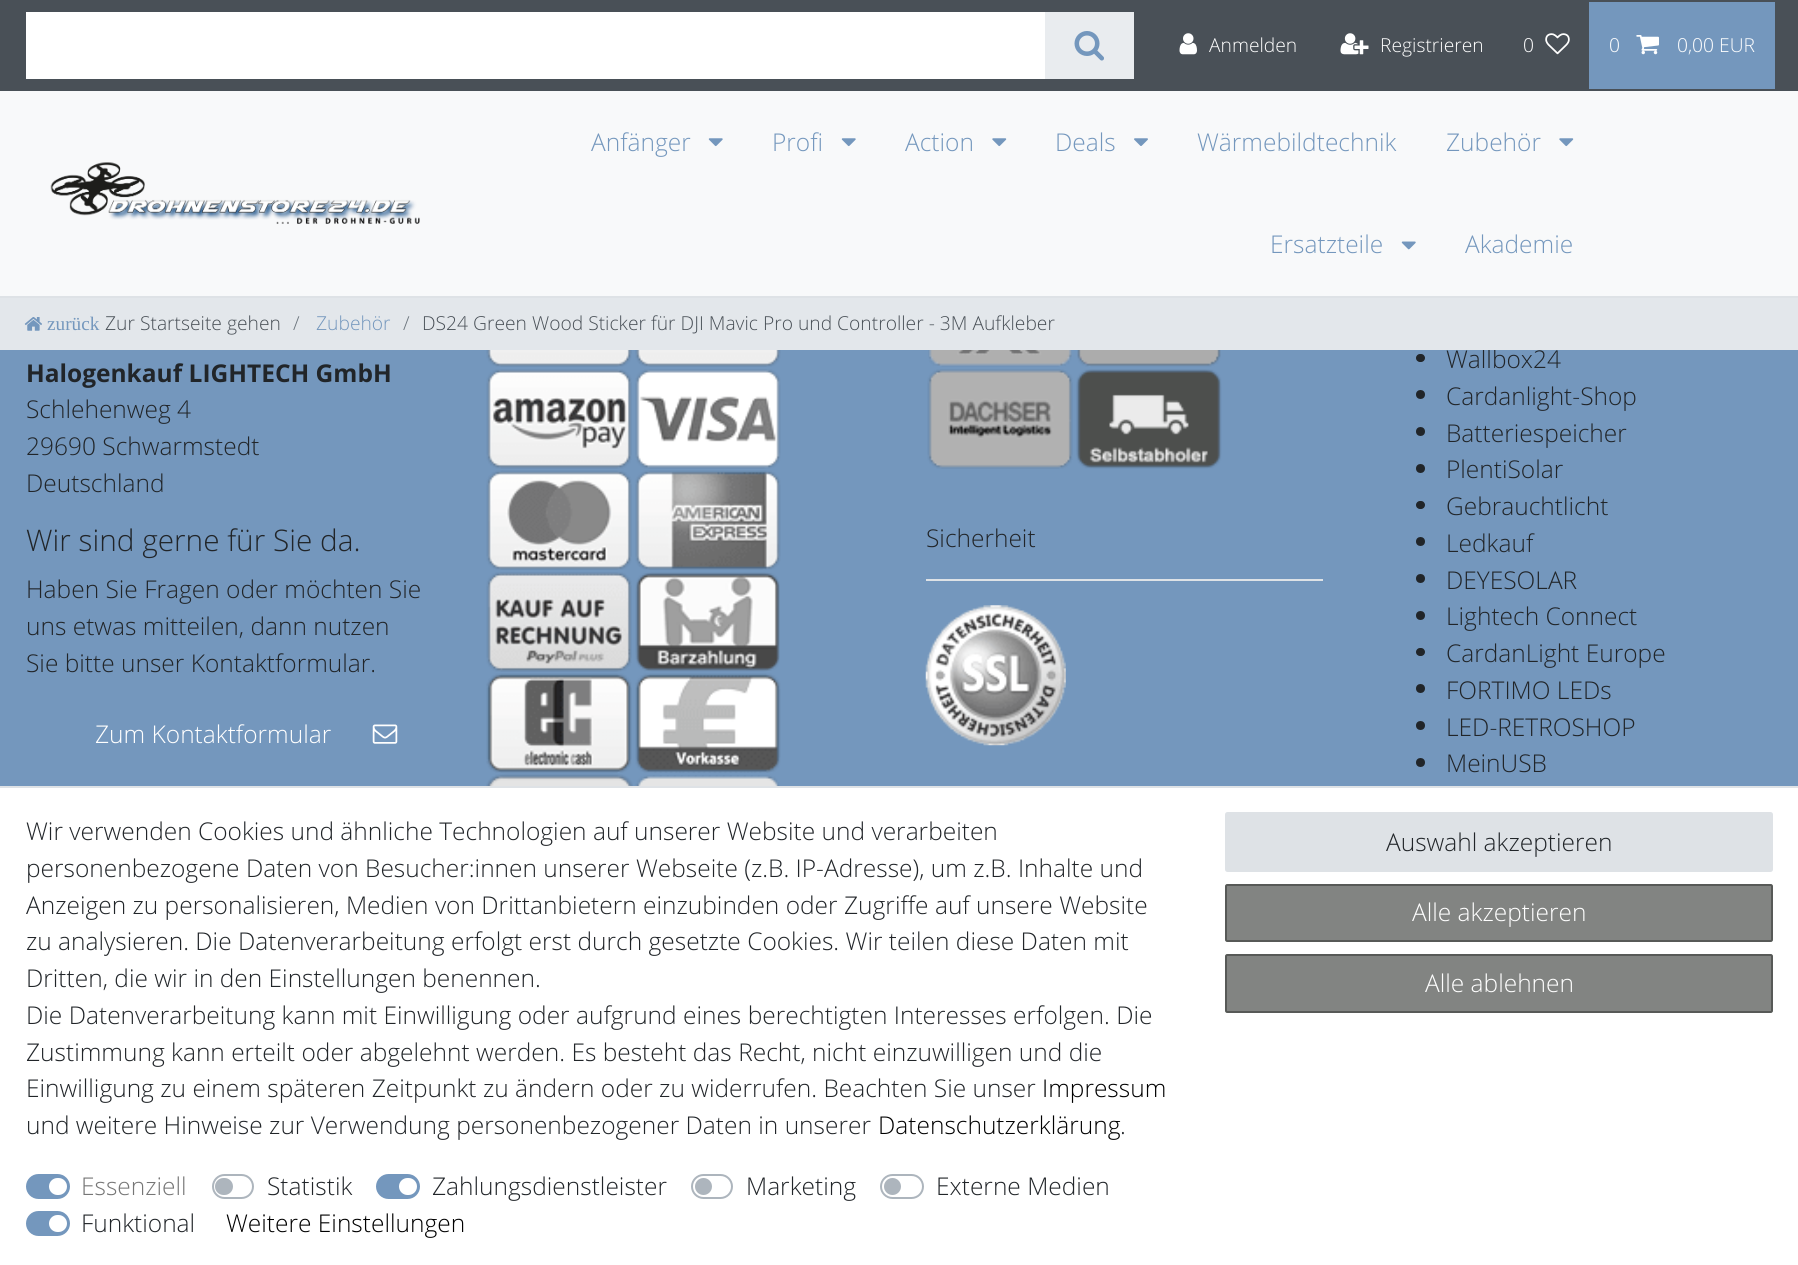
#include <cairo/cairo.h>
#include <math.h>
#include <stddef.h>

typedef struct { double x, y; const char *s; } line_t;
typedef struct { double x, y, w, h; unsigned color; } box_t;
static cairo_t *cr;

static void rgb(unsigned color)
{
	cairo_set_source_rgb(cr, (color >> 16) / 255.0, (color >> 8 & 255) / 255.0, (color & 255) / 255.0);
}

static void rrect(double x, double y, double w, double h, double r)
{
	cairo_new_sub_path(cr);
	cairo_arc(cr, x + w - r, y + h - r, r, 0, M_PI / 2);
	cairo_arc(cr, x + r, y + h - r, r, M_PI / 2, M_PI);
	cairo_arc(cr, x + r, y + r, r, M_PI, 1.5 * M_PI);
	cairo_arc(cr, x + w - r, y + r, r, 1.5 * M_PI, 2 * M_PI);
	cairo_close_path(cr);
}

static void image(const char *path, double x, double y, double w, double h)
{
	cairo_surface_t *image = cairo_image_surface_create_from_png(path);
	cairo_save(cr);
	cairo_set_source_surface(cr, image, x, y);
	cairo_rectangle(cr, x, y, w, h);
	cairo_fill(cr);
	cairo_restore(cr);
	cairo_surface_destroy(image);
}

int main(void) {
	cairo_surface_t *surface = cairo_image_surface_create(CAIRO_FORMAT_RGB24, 1798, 1265);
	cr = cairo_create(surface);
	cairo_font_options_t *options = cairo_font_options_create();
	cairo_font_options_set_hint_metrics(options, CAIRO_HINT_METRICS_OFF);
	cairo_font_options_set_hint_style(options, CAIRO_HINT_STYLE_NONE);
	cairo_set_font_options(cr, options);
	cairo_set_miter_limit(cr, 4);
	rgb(0x7497bd);
	cairo_paint(cr);
	{
		static const box_t items[] = {
			{0, 0, 1798, 91, 0x495057},
			{26, 12, 1019, 67, 0xffffff},
			{1045, 12, 89, 67, 0xe9ecef},
		};
		for (size_t i = 0; i < sizeof items / sizeof *items; i++) {
			rgb(items[i].color);
			cairo_rectangle(cr, items[i].x, items[i].y, items[i].w, items[i].h);
			cairo_fill(cr);
		}
	}
	image("img/1.png", 1074, 31, 30, 30);
	image("img/2.png", 1179, 33, 18, 22);
	image("img/3.png", 1340, 33, 29, 22);
	image("img/4.png", 1545, 33, 25, 22);
	rgb(0x7497bd);
	cairo_rectangle(cr, 1589, 2, 186, 87);
	cairo_fill(cr);
	image("img/5.png", 1636, 35, 23, 20);
	rgb(0xf8f9fa);
	cairo_rectangle(cr, 0, 91, 1798, 205);
	cairo_fill(cr);
	rgb(0xdee2e6);
	cairo_rectangle(cr, 0, 296, 1798, 2);
	cairo_fill(cr);
	image("img/6.png", 50, 162, 370, 62);
	image("img/7.png", 708, 138, 15, 9);
	image("img/7.png", 841, 138, 15, 9);
	image("img/8.png", 992, 138, 15, 9);
	image("img/9.png", 1134, 138, 14, 8);
	image("img/8.png", 1559, 138, 15, 9);
	image("img/10.png", 1401, 241, 15, 9);
	image("img/12.png", 372, 724, 26, 20);
	image("img/13.png", 486, 350, 146, 17);
	image("img/14.png", 635, 350, 146, 17);
	image("img/15.png", 486, 369, 146, 100);
	image("img/16.png", 635, 369, 146, 100);
	image("img/17.png", 486, 470, 146, 100);
	image("img/18.png", 635, 470, 146, 100);
	image("img/19.png", 486, 572, 146, 100);
	image("img/20.png", 635, 572, 145, 100);
	image("img/21.png", 486, 673, 146, 100);
	image("img/22.png", 635, 673, 146, 100);
	image("img/23.png", 486, 773, 147, 13);
	image("img/24.png", 635, 775, 145, 11);
	image("img/25.png", 928, 350, 144, 17);
	image("img/26.png", 1077, 350, 144, 17);
	image("img/27.png", 927, 369, 146, 100);
	image("img/28.png", 1076, 369, 146, 100);
	cairo_rectangle(cr, 926, 579, 397, 2);
	cairo_fill(cr);
	image("img/29.png", 925, 605, 141, 141);
	rgb(0x212529);
	rrect(1416, 354, 9, 8, 4);
	cairo_fill(cr);
	cairo_arc(cr, 1420.5, 394.5, 4.5, 0, 2 * M_PI);
	cairo_fill(cr);
	cairo_arc(cr, 1420.5, 431.5, 4.5, 0, 2 * M_PI);
	cairo_fill(cr);
	cairo_arc(cr, 1420.5, 468.5, 4.5, 0, 2 * M_PI);
	cairo_fill(cr);
	rrect(1416, 501, 9, 8, 4);
	cairo_fill(cr);
	cairo_arc(cr, 1420.5, 541.5, 4.5, 0, 2 * M_PI);
	cairo_fill(cr);
	cairo_arc(cr, 1420.5, 578.5, 4.5, 0, 2 * M_PI);
	cairo_fill(cr);
	cairo_arc(cr, 1420.5, 615.5, 4.5, 0, 2 * M_PI);
	cairo_fill(cr);
	rrect(1416, 648, 9, 8, 4);
	cairo_fill(cr);
	cairo_arc(cr, 1420.5, 688.5, 4.5, 0, 2 * M_PI);
	cairo_fill(cr);
	cairo_arc(cr, 1420.5, 725.5, 4.5, 0, 2 * M_PI);
	cairo_fill(cr);
	cairo_arc(cr, 1420.5, 762.5, 4.5, 0, 2 * M_PI);
	cairo_fill(cr);
	rgb(0xffffff);
	cairo_rectangle(cr, 0, 788, 1798, 477);
	cairo_fill(cr);
	rgb(0xdee2e6);
	cairo_rectangle(cr, 0, 786, 1798, 2);
	cairo_fill(cr);
	rgb(0x7497bd);
	rrect(27, 1175, 42, 23, 11.5);
	cairo_fill_preserve(cr);
	cairo_stroke(cr);
	rgb(0xffffff);
	rrect(49, 1178, 18, 17, 8.5);
	cairo_fill(cr);
	rrect(213, 1175, 40, 23, 11.5);
	rgb(0xadb5bd);
	cairo_stroke(cr);
	rrect(215, 1178, 18, 17, 8.5);
	cairo_fill(cr);
	rgb(0x7497bd);
	rrect(377, 1175, 42, 23, 11.5);
	cairo_fill_preserve(cr);
	cairo_stroke(cr);
	rgb(0xffffff);
	rrect(399, 1178, 18, 17, 8.5);
	cairo_fill(cr);
	rrect(692, 1175, 40, 23, 11.5);
	rgb(0xadb5bd);
	cairo_stroke(cr);
	cairo_arc(cr, 703.5, 1186.5, 8.5, 0, 2 * M_PI);
	cairo_fill(cr);
	rrect(881, 1175, 42, 23, 11.5);
	cairo_stroke(cr);
	cairo_arc(cr, 892.5, 1186.5, 8.5, 0, 2 * M_PI);
	cairo_fill(cr);
	rgb(0x7497bd);
	rrect(27, 1212, 42, 23, 11.5);
	cairo_fill_preserve(cr);
	cairo_stroke(cr);
	rgb(0xffffff);
	rrect(49, 1215, 18, 17, 8.5);
	cairo_fill(cr);
	rgb(0xdee2e6);
	rrect(1226, 813, 546, 58, 1.5);
	cairo_fill_preserve(cr);
	cairo_stroke(cr);
	rgb(0x828482);
	rrect(1225, 884, 548, 58, 2.5);
	cairo_fill(cr);
	rrect(1226, 885, 546, 56, 1.5);
	cairo_set_source_rgba(cr, 0.302, 0.31, 0.302, 0.8);
	cairo_stroke(cr);
	rgb(0x828482);
	rrect(1225, 954, 548, 59, 2.5);
	cairo_fill(cr);
	rrect(1226, 955, 546, 57, 1.5);
	cairo_set_source_rgba(cr, 0.302, 0.31, 0.302, 0.8);
	cairo_stroke(cr);
	cairo_select_font_face(cr, "Open Sans Light", CAIRO_FONT_SLANT_NORMAL, CAIRO_FONT_WEIGHT_NORMAL);
	cairo_set_font_size(cr, 19.25);
	rgb(0xffffff);
	{
		static const line_t items[] = {
			{1209, 52, "Anmelden"},
			{1380, 52, "Registrieren"},
			{1523, 52, "0"},
			{1609, 52, "0"},
			{1677, 52, "0,00 EUR"},
		};
		for (size_t i = 0; i < sizeof items / sizeof *items; i++) {
			cairo_move_to(cr, items[i].x, items[i].y);
			cairo_show_text(cr, items[i].s);
		}
	}
	cairo_set_font_size(cr, 24.5);
	rgb(0x7497bd);
	{
		static const line_t items[] = {
			{591, 151, "Anfänger"},
			{772, 151, "Profi"},
			{905, 151, "Action"},
			{1055, 151, "Deals"},
			{1197, 151, "Wärmebildtechnik"},
			{1446, 151, "Zubehör"},
			{1270, 253, "Ersatzteile"},
			{1465, 253, "Akademie"},
		};
		for (size_t i = 0; i < sizeof items / sizeof *items; i++) {
			cairo_move_to(cr, items[i].x, items[i].y);
			cairo_show_text(cr, items[i].s);
		}
	}
	cairo_select_font_face(cr, "Open Sans", CAIRO_FONT_SLANT_NORMAL, CAIRO_FONT_WEIGHT_BOLD);
	rgb(0x212529);
	cairo_move_to(cr, 26, 382);
	cairo_show_text(cr, "Halogenkauf LIGHTECH GmbH");
	cairo_select_font_face(cr, "Open Sans Light", CAIRO_FONT_SLANT_NORMAL, CAIRO_FONT_WEIGHT_NORMAL);
	{
		static const line_t items[] = {
			{26, 418, "Schlehenweg 4"},
			{26, 455, "29690 Schwarmstedt"},
			{26, 492, "Deutschland"},
		};
		for (size_t i = 0; i < sizeof items / sizeof *items; i++) {
			cairo_move_to(cr, items[i].x, items[i].y);
			cairo_show_text(cr, items[i].s);
		}
	}
	cairo_set_font_size(cr, 29.75);
	cairo_move_to(cr, 26, 551);
	cairo_show_text(cr, "Wir sind gerne für Sie da.");
	cairo_set_font_size(cr, 24.5);
	{
		static const line_t items[] = {
			{26, 598, "Haben Sie Fragen oder möchten Sie"},
			{26, 635, "uns etwas mitteilen, dann nutzen"},
			{26, 672, "Sie bitte unser Kontaktformular."},
		};
		for (size_t i = 0; i < sizeof items / sizeof *items; i++) {
			cairo_move_to(cr, items[i].x, items[i].y);
			cairo_show_text(cr, items[i].s);
		}
	}
	rgb(0xffffff);
	cairo_move_to(cr, 95, 743);
	cairo_show_text(cr, "Zum Kontaktformular");
	rgb(0x212529);
	cairo_move_to(cr, 926, 547);
	cairo_show_text(cr, "Sicherheit");
	cairo_move_to(cr, 1446, 368);
	cairo_show_text(cr, "Wallbox24");
	rgb(0xe3e7eb);
	cairo_rectangle(cr, 0, 298, 1798, 52);
	cairo_fill(cr);
	cairo_set_font_size(cr, 19.25);
	rgb(0x495057);
	cairo_move_to(cr, 422, 330);
	cairo_show_text(cr, "DS24 Green Wood Sticker für DJI Mavic Pro und Controller - 3M Aufkleber");
	rgb(0x6c757d);
	cairo_move_to(cr, 403, 330);
	cairo_show_text(cr, "/");
	rgb(0x7497bd);
	cairo_move_to(cr, 316, 330);
	cairo_show_text(cr, "Zubehör");
	rgb(0x6c757d);
	cairo_move_to(cr, 293, 330);
	cairo_show_text(cr, "/");
	rgb(0x495057);
	cairo_move_to(cr, 105, 330);
	cairo_show_text(cr, "Zur Startseite gehen");
	cairo_select_font_face(cr, "Liberation Serif", CAIRO_FONT_SLANT_NORMAL, CAIRO_FONT_WEIGHT_NORMAL);
	rgb(0x7497bd);
	cairo_move_to(cr, 47, 330);
	cairo_show_text(cr, "zurück");
	image("img/11.png", 24, 317, 18, 14);
	cairo_select_font_face(cr, "Open Sans Light", CAIRO_FONT_SLANT_NORMAL, CAIRO_FONT_WEIGHT_NORMAL);
	cairo_set_font_size(cr, 24.5);
	rgb(0x212529);
	{
		static const line_t items[] = {
			{1446, 405, "Cardanlight-Shop"},
			{1446, 442, "Batteriespeicher"},
			{1446, 478, "PlentiSolar"},
			{1446, 515, "Gebrauchtlicht"},
			{1446, 552, "Ledkauf"},
			{1446, 589, "DEYESOLAR"},
			{1446, 625, "Lightech Connect"},
			{1446, 662, "CardanLight Europe"},
			{1446, 699, "FORTIMO LEDs"},
			{1446, 736, "LED-RETROSHOP"},
			{1446, 772, "MeinUSB"},
			{26, 840, "Wir verwenden Cookies und ähnliche Technologien auf unserer Website und verarbeiten"},
			{26, 877, "personenbezogene Daten von Besucher:innen unserer Webseite (z.B. IP-Adresse), um z.B. Inhalte und"},
			{26, 914, "Anzeigen zu personalisieren, Medien von Drittanbietern einzubinden oder Zugriffe auf unsere Website"},
			{26, 950, "zu analysieren. Die Datenverarbeitung erfolgt erst durch gesetzte Cookies. Wir teilen diese Daten mit"},
			{26, 987, "Dritten, die wir in den Einstellungen benennen."},
			{26, 1024, "Die Datenverarbeitung kann mit Einwilligung oder aufgrund eines berechtigten Interesses erfolgen. Die"},
			{26, 1061, "Zustimmung kann erteilt oder abgelehnt werden. Es besteht das Recht, nicht einzuwilligen und die"},
			{26, 1097, "Einwilligung zu einem späteren Zeitpunkt zu ändern oder zu widerrufen. Beachten Sie unser"},
		};
		for (size_t i = 0; i < sizeof items / sizeof *items; i++) {
			cairo_move_to(cr, items[i].x, items[i].y);
			cairo_show_text(cr, items[i].s);
		}
	}
	rgb(0x000000);
	cairo_move_to(cr, 1042, 1097);
	cairo_show_text(cr, "Impressum");
	rgb(0x212529);
	cairo_move_to(cr, 26, 1134);
	cairo_show_text(cr, "und weitere Hinweise zur Verwendung personenbezogener Daten in unserer");
	rgb(0x000000);
	cairo_move_to(cr, 878, 1134);
	cairo_show_text(cr, "Datenschutzerklärung");
	rgb(0x212529);
	cairo_move_to(cr, 1120, 1134);
	cairo_show_text(cr, ".");
	rgb(0x767676);
	cairo_move_to(cr, 81, 1195);
	cairo_show_text(cr, "Essenziell");
	rgb(0x212529);
	{
		static const line_t items[] = {
			{267, 1195, "Statistik"},
			{432, 1195, "Zahlungsdienstleister"},
			{746, 1195, "Marketing"},
			{936, 1195, "Externe Medien"},
			{81, 1232, "Funktional"},
		};
		for (size_t i = 0; i < sizeof items / sizeof *items; i++) {
			cairo_move_to(cr, items[i].x, items[i].y);
			cairo_show_text(cr, items[i].s);
		}
	}
	rgb(0x000000);
	cairo_move_to(cr, 226, 1232);
	cairo_show_text(cr, "Weitere Einstellungen");
	rgb(0x212529);
	cairo_move_to(cr, 1386, 851);
	cairo_show_text(cr, "Auswahl akzeptieren");
	rgb(0xffffff);
	cairo_move_to(cr, 1412, 921);
	cairo_show_text(cr, "Alle akzeptieren");
	cairo_move_to(cr, 1425, 992);
	cairo_show_text(cr, "Alle ablehnen");
	cairo_surface_write_to_png(surface, "page.png");
	cairo_font_options_destroy(options);
	cairo_destroy(cr);
	cairo_surface_destroy(surface);
	return 0;
}
